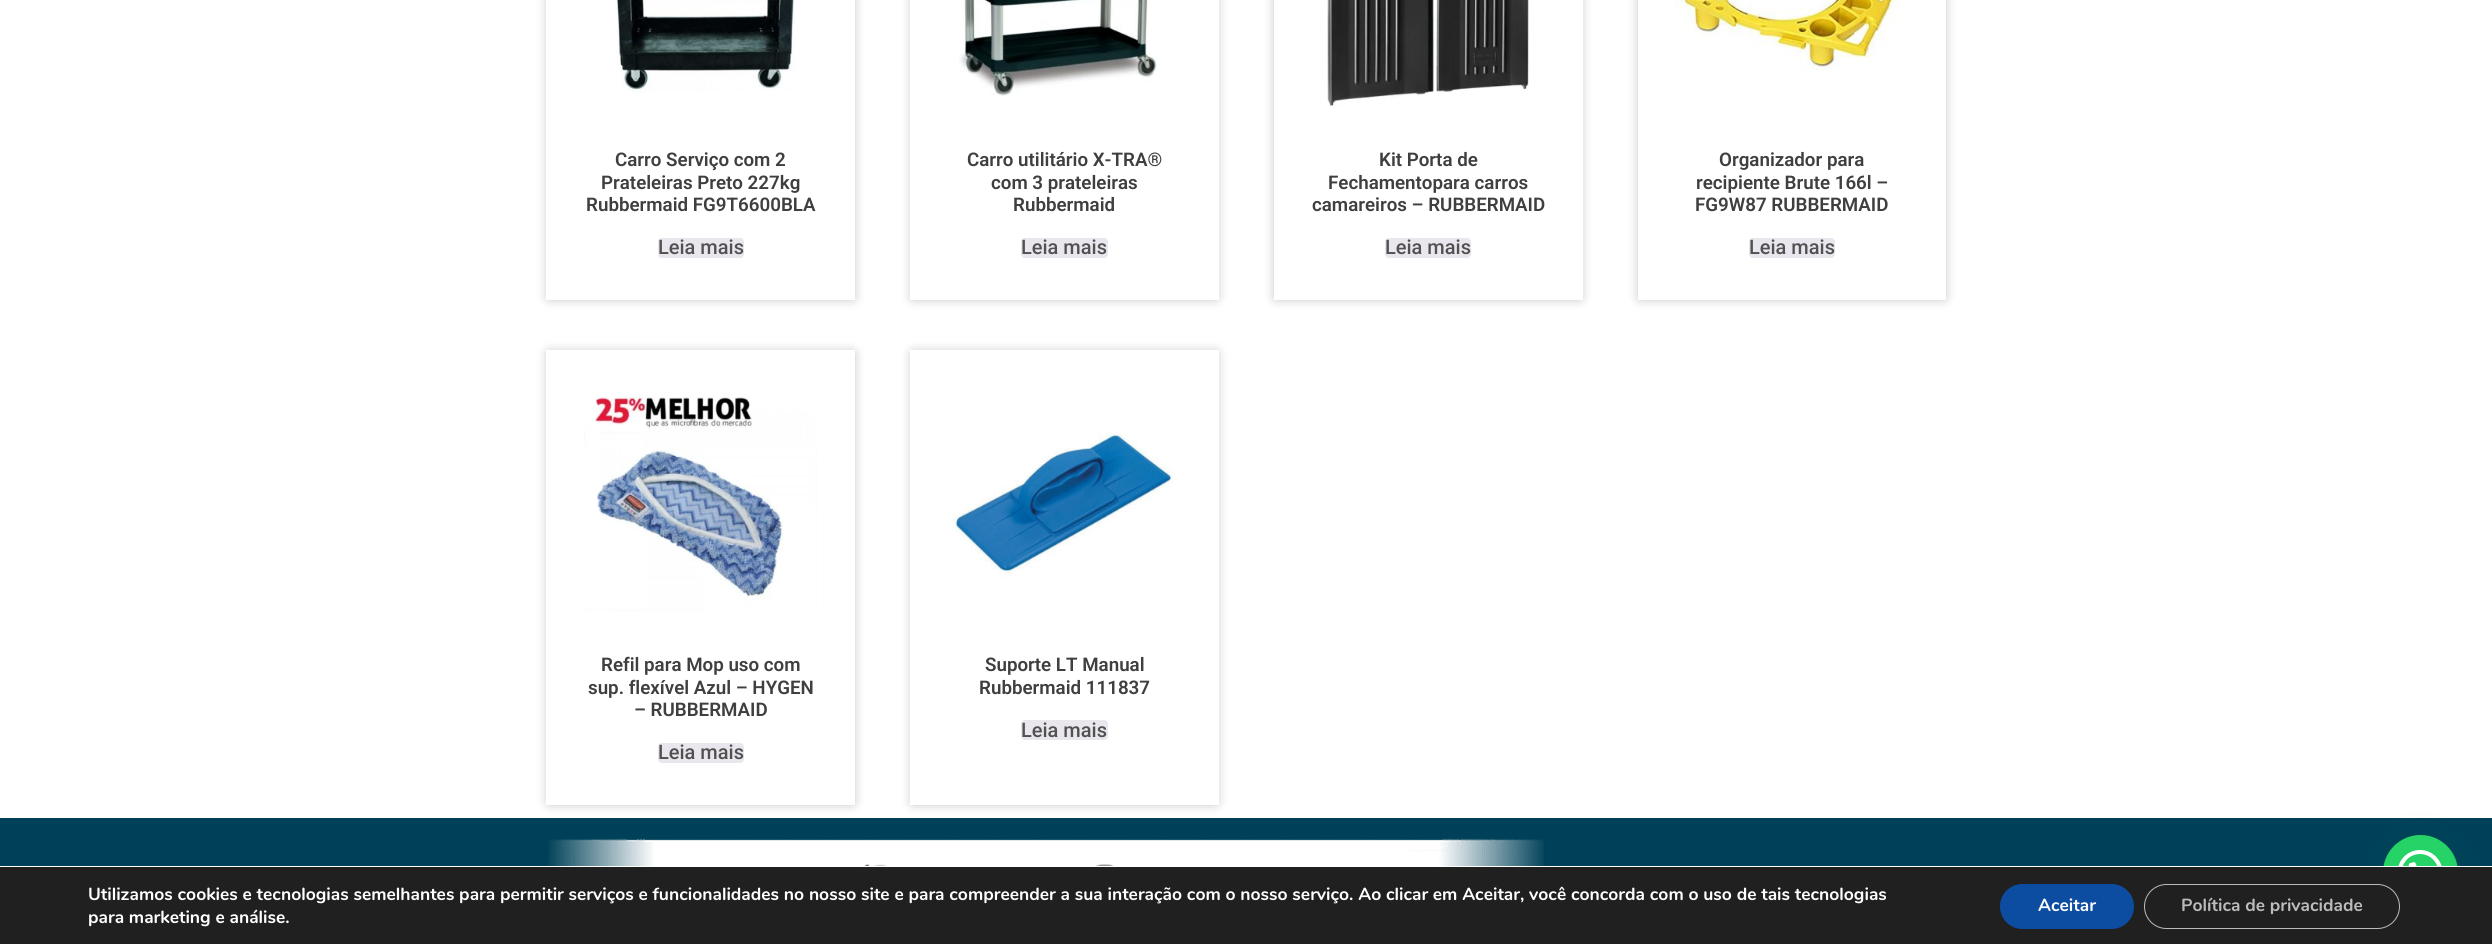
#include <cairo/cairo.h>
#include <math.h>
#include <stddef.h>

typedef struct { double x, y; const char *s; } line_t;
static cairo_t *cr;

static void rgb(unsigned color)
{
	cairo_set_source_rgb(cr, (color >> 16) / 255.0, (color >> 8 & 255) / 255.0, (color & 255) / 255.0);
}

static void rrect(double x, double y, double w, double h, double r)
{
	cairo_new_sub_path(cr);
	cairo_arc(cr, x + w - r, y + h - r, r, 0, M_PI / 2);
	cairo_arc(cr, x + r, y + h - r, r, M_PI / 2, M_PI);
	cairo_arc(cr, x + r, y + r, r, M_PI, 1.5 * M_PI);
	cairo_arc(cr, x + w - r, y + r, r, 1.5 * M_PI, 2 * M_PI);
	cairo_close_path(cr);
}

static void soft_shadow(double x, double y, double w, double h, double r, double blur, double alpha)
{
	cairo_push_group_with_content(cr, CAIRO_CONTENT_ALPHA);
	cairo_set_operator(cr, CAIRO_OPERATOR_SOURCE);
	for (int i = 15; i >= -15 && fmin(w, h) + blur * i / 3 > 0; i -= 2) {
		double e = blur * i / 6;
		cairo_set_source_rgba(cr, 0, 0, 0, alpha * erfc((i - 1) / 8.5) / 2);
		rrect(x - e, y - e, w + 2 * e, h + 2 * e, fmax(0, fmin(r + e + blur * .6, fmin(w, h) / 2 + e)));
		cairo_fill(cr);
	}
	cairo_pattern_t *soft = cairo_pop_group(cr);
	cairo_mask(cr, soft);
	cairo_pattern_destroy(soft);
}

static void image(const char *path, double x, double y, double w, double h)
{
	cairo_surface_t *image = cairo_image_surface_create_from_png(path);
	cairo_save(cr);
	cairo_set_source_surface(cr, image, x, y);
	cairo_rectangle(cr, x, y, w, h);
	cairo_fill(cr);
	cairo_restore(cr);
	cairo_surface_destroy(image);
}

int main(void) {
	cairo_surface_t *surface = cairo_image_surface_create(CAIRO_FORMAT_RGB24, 2492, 944);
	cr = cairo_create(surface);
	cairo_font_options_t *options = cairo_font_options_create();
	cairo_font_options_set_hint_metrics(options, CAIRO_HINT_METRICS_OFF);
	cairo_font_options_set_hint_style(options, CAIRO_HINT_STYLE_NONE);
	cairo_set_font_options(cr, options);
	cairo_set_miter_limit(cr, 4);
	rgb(0xffffff);
	cairo_paint(cr);
	cairo_save(cr);
	cairo_set_fill_rule(cr, CAIRO_FILL_RULE_EVEN_ODD);
	cairo_new_path(cr);
	cairo_move_to(cr, 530, 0);
	cairo_line_to(cr, 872, 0);
	cairo_line_to(cr, 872, 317);
	cairo_line_to(cr, 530, 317);
	cairo_close_path(cr);
	cairo_move_to(cr, 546, -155);
	cairo_line_to(cr, 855, -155);
	cairo_line_to(cr, 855, 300);
	cairo_line_to(cr, 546, 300);
	cairo_close_path(cr);
	cairo_clip(cr);
	rgb(0x000000);
	soft_shadow(549, -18, 304, 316, 0, 6, 0.3);
	cairo_restore(cr);
	image("img/1.png", 615, 0, 181, 92);
	rgb(0xe9e6ed);
	rrect(658, 238, 86, 20, 4);
	cairo_fill(cr);
	cairo_save(cr);
	cairo_set_fill_rule(cr, CAIRO_FILL_RULE_EVEN_ODD);
	cairo_new_path(cr);
	cairo_move_to(cr, 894, 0);
	cairo_line_to(cr, 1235, 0);
	cairo_line_to(cr, 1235, 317);
	cairo_line_to(cr, 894, 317);
	cairo_close_path(cr);
	cairo_move_to(cr, 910, -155);
	cairo_line_to(cr, 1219, -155);
	cairo_line_to(cr, 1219, 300);
	cairo_line_to(cr, 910, 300);
	cairo_close_path(cr);
	cairo_clip(cr);
	rgb(0x000000);
	soft_shadow(913, -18, 303, 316, 0, 6, 0.3);
	cairo_restore(cr);
	image("img/2.png", 959, 0, 198, 96);
	rrect(1021, 238, 87, 20, 4);
	cairo_fill(cr);
	cairo_save(cr);
	cairo_set_fill_rule(cr, CAIRO_FILL_RULE_EVEN_ODD);
	cairo_new_path(cr);
	cairo_move_to(cr, 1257, 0);
	cairo_line_to(cr, 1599, 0);
	cairo_line_to(cr, 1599, 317);
	cairo_line_to(cr, 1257, 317);
	cairo_close_path(cr);
	cairo_move_to(cr, 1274, -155);
	cairo_line_to(cr, 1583, -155);
	cairo_line_to(cr, 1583, 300);
	cairo_line_to(cr, 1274, 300);
	cairo_close_path(cr);
	cairo_clip(cr);
	rgb(0x000000);
	soft_shadow(1276, -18, 304, 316, 0, 6, 0.3);
	cairo_restore(cr);
	image("img/3.png", 1327, 0, 202, 107);
	rrect(1385, 238, 86, 20, 4);
	cairo_fill(cr);
	cairo_save(cr);
	cairo_set_fill_rule(cr, CAIRO_FILL_RULE_EVEN_ODD);
	cairo_new_path(cr);
	cairo_move_to(cr, 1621, 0);
	cairo_line_to(cr, 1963, 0);
	cairo_line_to(cr, 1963, 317);
	cairo_line_to(cr, 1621, 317);
	cairo_close_path(cr);
	cairo_move_to(cr, 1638, -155);
	cairo_line_to(cr, 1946, -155);
	cairo_line_to(cr, 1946, 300);
	cairo_line_to(cr, 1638, 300);
	cairo_close_path(cr);
	cairo_clip(cr);
	rgb(0x000000);
	soft_shadow(1640, -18, 304, 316, 0, 6, 0.3);
	cairo_restore(cr);
	image("img/4.png", 1675, 0, 225, 70);
	rrect(1749, 238, 86, 20, 4);
	cairo_fill(cr);
	cairo_save(cr);
	cairo_set_fill_rule(cr, CAIRO_FILL_RULE_EVEN_ODD);
	cairo_new_path(cr);
	cairo_move_to(cr, 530, 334);
	cairo_line_to(cr, 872, 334);
	cairo_line_to(cr, 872, 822);
	cairo_line_to(cr, 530, 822);
	cairo_close_path(cr);
	cairo_move_to(cr, 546, 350);
	cairo_line_to(cr, 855, 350);
	cairo_line_to(cr, 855, 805);
	cairo_line_to(cr, 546, 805);
	cairo_close_path(cr);
	cairo_clip(cr);
	rgb(0x000000);
	soft_shadow(549, 353, 304, 450, 0, 6, 0.3);
	cairo_restore(cr);
	image("img/5.png", 584, 394, 233, 218);
	rrect(658, 743, 86, 20, 4);
	cairo_fill(cr);
	cairo_save(cr);
	cairo_set_fill_rule(cr, CAIRO_FILL_RULE_EVEN_ODD);
	cairo_new_path(cr);
	cairo_move_to(cr, 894, 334);
	cairo_line_to(cr, 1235, 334);
	cairo_line_to(cr, 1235, 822);
	cairo_line_to(cr, 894, 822);
	cairo_close_path(cr);
	cairo_move_to(cr, 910, 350);
	cairo_line_to(cr, 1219, 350);
	cairo_line_to(cr, 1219, 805);
	cairo_line_to(cr, 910, 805);
	cairo_close_path(cr);
	cairo_clip(cr);
	rgb(0x000000);
	soft_shadow(913, 353, 303, 450, 0, 6, 0.3);
	cairo_restore(cr);
	image("img/6.png", 950, 431, 225, 147);
	rrect(1021, 720, 87, 20, 4);
	cairo_fill(cr);
	rgb(0x004159);
	cairo_rectangle(cr, 0, 818, 2492, 48);
	cairo_fill(cr);
	rgb(0x075e54);
	soft_shadow(2384, 843, 75, 75, 37.5, 15, 0.24);
	rgb(0x25d366);
	cairo_arc(cr, 2420.5, 872.5, 37.5, 0, 2 * M_PI);
	cairo_fill(cr);
	image("img/7.png", 2398, 850, 44, 16);
	image("img/8.png", 548, 838, 996, 28);
	rgb(0x202020);
	cairo_rectangle(cr, 0, 867, 2492, 77);
	cairo_fill(cr);
	rgb(0xffffff);
	cairo_rectangle(cr, 2362, 866, 119, 1);
	cairo_fill(cr);
	rgb(0x0c4da2);
	rrect(2000, 884, 134, 45, 22.5);
	cairo_fill(cr);
	rrect(2144.5, 884.5, 255, 44, 22);
	rgb(0xbcbcbc);
	cairo_set_line_width(cr, 1);
	cairo_stroke(cr);
	cairo_select_font_face(cr, "Roboto SemiBold", CAIRO_FONT_SLANT_NORMAL, CAIRO_FONT_WEIGHT_NORMAL);
	cairo_set_font_size(cr, 18.75);
	rgb(0x3f3f3f);
	{
		static const line_t items[] = {
			{615, 166, "Carro Serviço com 2"},
			{601, 189, "Prateleiras Preto 227kg"},
			{586, 211, "Rubbermaid FG9T6600BLA"},
		};
		for (size_t i = 0; i < sizeof items / sizeof *items; i++) {
			cairo_move_to(cr, items[i].x, items[i].y);
			cairo_show_text(cr, items[i].s);
		}
	}
	cairo_select_font_face(cr, "Roboto Medium", CAIRO_FONT_SLANT_NORMAL, CAIRO_FONT_WEIGHT_NORMAL);
	cairo_set_font_size(cr, 20);
	rgb(0x515151);
	cairo_move_to(cr, 658, 254);
	cairo_show_text(cr, "Leia mais");
	cairo_select_font_face(cr, "Roboto SemiBold", CAIRO_FONT_SLANT_NORMAL, CAIRO_FONT_WEIGHT_NORMAL);
	cairo_set_font_size(cr, 18.75);
	rgb(0x3f3f3f);
	{
		static const line_t items[] = {
			{967, 166, "Carro utilitário X-TRA®"},
			{991, 189, "com 3 prateleiras"},
			{1013, 211, "Rubbermaid"},
		};
		for (size_t i = 0; i < sizeof items / sizeof *items; i++) {
			cairo_move_to(cr, items[i].x, items[i].y);
			cairo_show_text(cr, items[i].s);
		}
	}
	cairo_select_font_face(cr, "Roboto Medium", CAIRO_FONT_SLANT_NORMAL, CAIRO_FONT_WEIGHT_NORMAL);
	cairo_set_font_size(cr, 20);
	rgb(0x515151);
	cairo_move_to(cr, 1021, 254);
	cairo_show_text(cr, "Leia mais");
	cairo_select_font_face(cr, "Roboto SemiBold", CAIRO_FONT_SLANT_NORMAL, CAIRO_FONT_WEIGHT_NORMAL);
	cairo_set_font_size(cr, 18.75);
	rgb(0x3f3f3f);
	{
		static const line_t items[] = {
			{1379, 166, "Kit Porta de"},
			{1328, 189, "Fechamentopara carros"},
			{1312, 211, "camareiros – RUBBERMAID"},
		};
		for (size_t i = 0; i < sizeof items / sizeof *items; i++) {
			cairo_move_to(cr, items[i].x, items[i].y);
			cairo_show_text(cr, items[i].s);
		}
	}
	cairo_select_font_face(cr, "Roboto Medium", CAIRO_FONT_SLANT_NORMAL, CAIRO_FONT_WEIGHT_NORMAL);
	cairo_set_font_size(cr, 20);
	rgb(0x515151);
	cairo_move_to(cr, 1385, 254);
	cairo_show_text(cr, "Leia mais");
	cairo_select_font_face(cr, "Roboto SemiBold", CAIRO_FONT_SLANT_NORMAL, CAIRO_FONT_WEIGHT_NORMAL);
	cairo_set_font_size(cr, 18.75);
	rgb(0x3f3f3f);
	{
		static const line_t items[] = {
			{1719, 166, "Organizador para"},
			{1696, 189, "recipiente Brute 166l –"},
			{1695, 211, "FG9W87 RUBBERMAID"},
		};
		for (size_t i = 0; i < sizeof items / sizeof *items; i++) {
			cairo_move_to(cr, items[i].x, items[i].y);
			cairo_show_text(cr, items[i].s);
		}
	}
	cairo_select_font_face(cr, "Roboto Medium", CAIRO_FONT_SLANT_NORMAL, CAIRO_FONT_WEIGHT_NORMAL);
	cairo_set_font_size(cr, 20);
	rgb(0x515151);
	cairo_move_to(cr, 1749, 254);
	cairo_show_text(cr, "Leia mais");
	cairo_select_font_face(cr, "Roboto SemiBold", CAIRO_FONT_SLANT_NORMAL, CAIRO_FONT_WEIGHT_NORMAL);
	cairo_set_font_size(cr, 18.75);
	rgb(0x3f3f3f);
	{
		static const line_t items[] = {
			{601, 671, "Refil para Mop uso com"},
			{588, 694, "sup. flexível Azul – HYGEN"},
			{634, 716, "– RUBBERMAID"},
		};
		for (size_t i = 0; i < sizeof items / sizeof *items; i++) {
			cairo_move_to(cr, items[i].x, items[i].y);
			cairo_show_text(cr, items[i].s);
		}
	}
	cairo_select_font_face(cr, "Roboto Medium", CAIRO_FONT_SLANT_NORMAL, CAIRO_FONT_WEIGHT_NORMAL);
	cairo_set_font_size(cr, 20);
	rgb(0x515151);
	cairo_move_to(cr, 658, 759);
	cairo_show_text(cr, "Leia mais");
	cairo_select_font_face(cr, "Roboto SemiBold", CAIRO_FONT_SLANT_NORMAL, CAIRO_FONT_WEIGHT_NORMAL);
	cairo_set_font_size(cr, 18.75);
	rgb(0x3f3f3f);
	cairo_move_to(cr, 985, 671);
	cairo_show_text(cr, "Suporte LT Manual");
	cairo_move_to(cr, 979, 694);
	cairo_show_text(cr, "Rubbermaid 111837");
	cairo_select_font_face(cr, "Roboto Medium", CAIRO_FONT_SLANT_NORMAL, CAIRO_FONT_WEIGHT_NORMAL);
	cairo_set_font_size(cr, 20);
	rgb(0x515151);
	cairo_move_to(cr, 1021, 737);
	cairo_show_text(cr, "Leia mais");
	cairo_select_font_face(cr, "Nunito", CAIRO_FONT_SLANT_NORMAL, CAIRO_FONT_WEIGHT_BOLD);
	cairo_set_font_size(cr, 17.5);
	rgb(0xffffff);
	{
		static const line_t items[] = {
			{88, 900, "Utilizamos cookies e tecnologias semelhantes para permitir serviços e funcionalidades no nosso site e para compreender a sua interação com o nosso serviço. Ao clicar em Aceitar, você concorda com o uso de tais tecnologias"},
			{88, 923, "para marketing e análise."},
			{2038, 911, "Aceitar"},
		};
		for (size_t i = 0; i < sizeof items / sizeof *items; i++) {
			cairo_move_to(cr, items[i].x, items[i].y);
			cairo_show_text(cr, items[i].s);
		}
	}
	rgb(0xbcbcbc);
	cairo_move_to(cr, 2181, 911);
	cairo_show_text(cr, "Política de privacidade");
	cairo_surface_write_to_png(surface, "page.png");
	cairo_font_options_destroy(options);
	cairo_destroy(cr);
	cairo_surface_destroy(surface);
	return 0;
}
